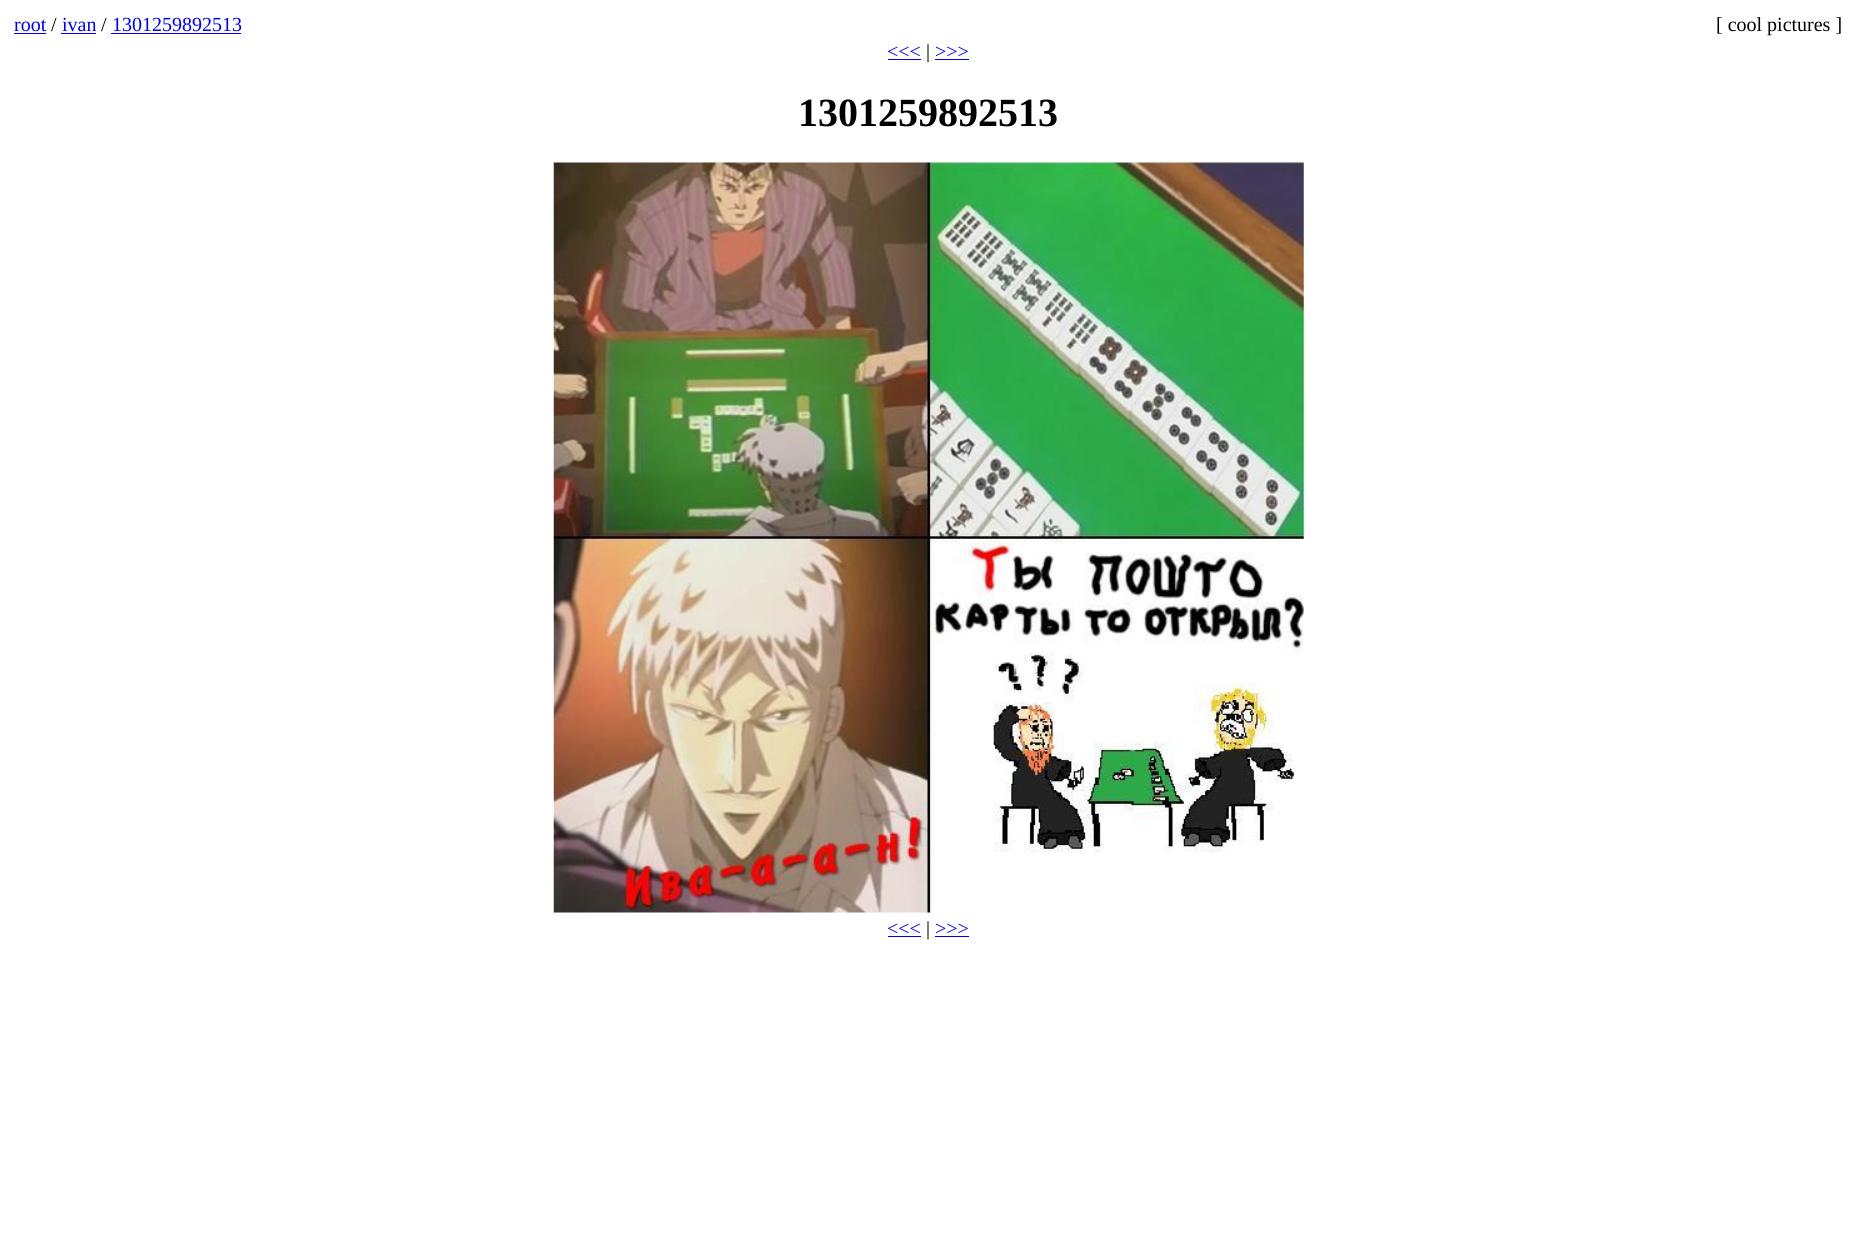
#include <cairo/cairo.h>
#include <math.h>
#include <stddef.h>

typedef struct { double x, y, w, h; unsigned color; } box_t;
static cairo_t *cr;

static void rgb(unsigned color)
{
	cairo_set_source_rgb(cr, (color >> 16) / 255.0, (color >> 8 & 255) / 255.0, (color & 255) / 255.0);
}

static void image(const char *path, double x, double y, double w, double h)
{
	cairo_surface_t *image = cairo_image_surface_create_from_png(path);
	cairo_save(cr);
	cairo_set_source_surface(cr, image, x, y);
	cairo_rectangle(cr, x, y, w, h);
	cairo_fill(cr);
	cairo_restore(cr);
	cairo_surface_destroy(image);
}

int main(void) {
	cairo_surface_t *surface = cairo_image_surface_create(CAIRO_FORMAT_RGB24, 1856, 1260);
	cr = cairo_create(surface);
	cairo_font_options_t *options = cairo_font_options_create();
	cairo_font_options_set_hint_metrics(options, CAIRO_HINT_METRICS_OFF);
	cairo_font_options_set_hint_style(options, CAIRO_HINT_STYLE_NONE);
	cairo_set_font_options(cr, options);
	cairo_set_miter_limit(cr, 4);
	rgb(0xffffff);
	cairo_paint(cr);
	{
		static const box_t items[] = {
			{14, 33, 32, 1, 0x0000ee},
			{61, 33, 35, 1, 0x0000ee},
			{111, 33, 130, 1, 0x0000ee},
			{888, 59, 33, 1, 0x0000ee},
			{935, 59, 34, 1, 0x0000ee},
		};
		for (size_t i = 0; i < sizeof items / sizeof *items; i++) {
			rgb(items[i].color);
			cairo_rectangle(cr, items[i].x, items[i].y, items[i].w, items[i].h);
			cairo_fill(cr);
		}
	}
	image("img/1.png", 553, 162, 751, 751);
	cairo_rectangle(cr, 888, 936, 33, 1);
	cairo_fill(cr);
	cairo_rectangle(cr, 935, 936, 34, 1);
	cairo_fill(cr);
	cairo_select_font_face(cr, "Liberation Serif", CAIRO_FONT_SLANT_NORMAL, CAIRO_FONT_WEIGHT_NORMAL);
	cairo_set_font_size(cr, 20);
	cairo_move_to(cr, 14, 31);
	cairo_show_text(cr, "root");
	rgb(0x000000);
	cairo_move_to(cr, 51, 31);
	cairo_show_text(cr, "/");
	rgb(0x0000ee);
	cairo_move_to(cr, 62, 31);
	cairo_show_text(cr, "ivan");
	rgb(0x000000);
	cairo_move_to(cr, 101, 31);
	cairo_show_text(cr, "/");
	rgb(0x0000ee);
	cairo_move_to(cr, 112, 31);
	cairo_show_text(cr, "1301259892513");
	rgb(0x000000);
	cairo_move_to(cr, 1716, 31);
	cairo_show_text(cr, "[ cool pictures ]");
	rgb(0x0000ee);
	cairo_move_to(cr, 887, 58);
	cairo_show_text(cr, "<<<");
	rgb(0x000000);
	cairo_move_to(cr, 926, 58);
	cairo_show_text(cr, "|");
	rgb(0x0000ee);
	cairo_move_to(cr, 935, 58);
	cairo_show_text(cr, ">>>");
	cairo_select_font_face(cr, "Liberation Serif", CAIRO_FONT_SLANT_NORMAL, CAIRO_FONT_WEIGHT_BOLD);
	cairo_set_font_size(cr, 40);
	rgb(0x000000);
	cairo_move_to(cr, 798, 126);
	cairo_show_text(cr, "1301259892513");
	cairo_select_font_face(cr, "Liberation Serif", CAIRO_FONT_SLANT_NORMAL, CAIRO_FONT_WEIGHT_NORMAL);
	cairo_set_font_size(cr, 20);
	rgb(0x0000ee);
	cairo_move_to(cr, 887, 935);
	cairo_show_text(cr, "<<<");
	rgb(0x000000);
	cairo_move_to(cr, 926, 935);
	cairo_show_text(cr, "|");
	rgb(0x0000ee);
	cairo_move_to(cr, 935, 935);
	cairo_show_text(cr, ">>>");
	cairo_surface_write_to_png(surface, "page.png");
	cairo_font_options_destroy(options);
	cairo_destroy(cr);
	cairo_surface_destroy(surface);
	return 0;
}
